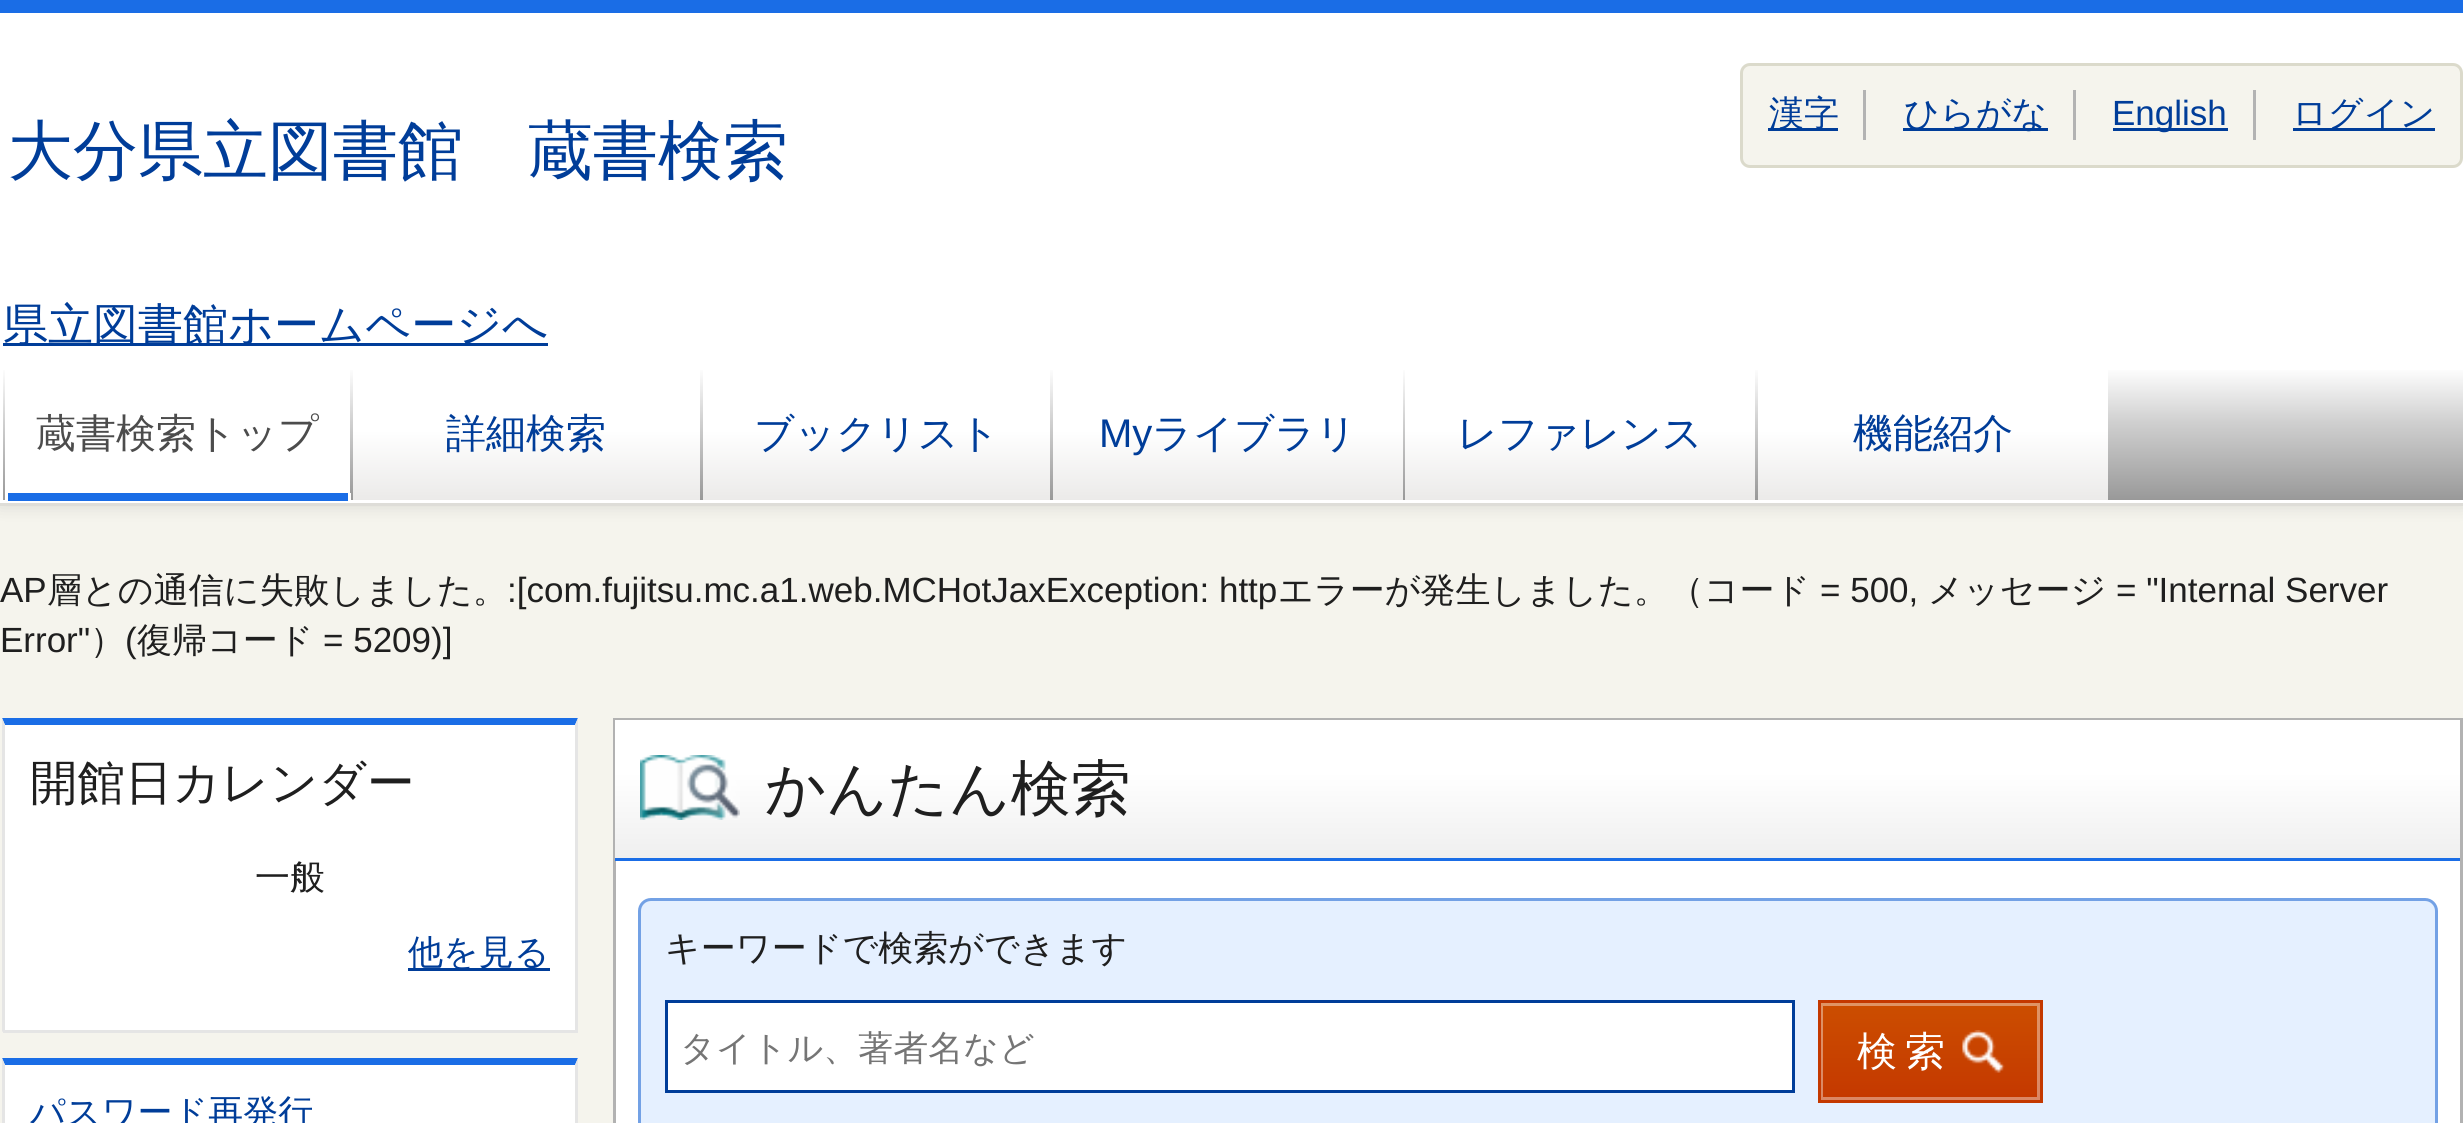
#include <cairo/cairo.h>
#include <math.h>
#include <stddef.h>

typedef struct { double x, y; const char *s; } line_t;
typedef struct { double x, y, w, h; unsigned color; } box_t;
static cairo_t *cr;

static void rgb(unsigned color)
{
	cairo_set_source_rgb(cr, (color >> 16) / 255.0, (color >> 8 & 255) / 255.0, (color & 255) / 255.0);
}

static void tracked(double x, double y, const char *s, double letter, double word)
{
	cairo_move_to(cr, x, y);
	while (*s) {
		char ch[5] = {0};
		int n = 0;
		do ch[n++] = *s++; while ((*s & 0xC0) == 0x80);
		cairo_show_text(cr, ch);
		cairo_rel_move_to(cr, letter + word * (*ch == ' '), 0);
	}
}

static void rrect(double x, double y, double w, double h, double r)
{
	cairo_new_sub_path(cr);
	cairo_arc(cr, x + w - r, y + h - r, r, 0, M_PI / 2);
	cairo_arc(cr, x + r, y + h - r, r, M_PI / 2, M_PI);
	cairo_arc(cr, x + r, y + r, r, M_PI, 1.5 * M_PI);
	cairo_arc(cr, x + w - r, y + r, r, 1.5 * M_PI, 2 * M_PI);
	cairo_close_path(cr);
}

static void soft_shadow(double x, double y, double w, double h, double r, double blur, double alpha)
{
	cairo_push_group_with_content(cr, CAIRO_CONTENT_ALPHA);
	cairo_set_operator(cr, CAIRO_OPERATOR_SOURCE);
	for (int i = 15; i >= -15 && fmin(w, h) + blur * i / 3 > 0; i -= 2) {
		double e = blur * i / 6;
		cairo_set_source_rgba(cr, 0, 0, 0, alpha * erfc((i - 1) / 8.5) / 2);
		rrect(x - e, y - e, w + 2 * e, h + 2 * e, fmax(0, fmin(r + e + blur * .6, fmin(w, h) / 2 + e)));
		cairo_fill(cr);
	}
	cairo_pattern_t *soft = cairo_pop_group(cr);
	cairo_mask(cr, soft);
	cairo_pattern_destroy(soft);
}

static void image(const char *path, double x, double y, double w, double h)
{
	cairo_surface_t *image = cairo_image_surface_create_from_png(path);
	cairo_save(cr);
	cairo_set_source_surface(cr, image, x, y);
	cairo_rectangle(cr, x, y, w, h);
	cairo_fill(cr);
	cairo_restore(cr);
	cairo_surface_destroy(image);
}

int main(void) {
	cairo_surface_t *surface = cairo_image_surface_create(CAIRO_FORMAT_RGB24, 2463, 1123);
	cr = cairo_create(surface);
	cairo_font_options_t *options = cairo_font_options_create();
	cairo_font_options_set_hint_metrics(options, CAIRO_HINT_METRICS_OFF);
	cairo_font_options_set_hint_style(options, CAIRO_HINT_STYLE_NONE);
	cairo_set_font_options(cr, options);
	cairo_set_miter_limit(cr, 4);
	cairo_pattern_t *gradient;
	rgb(0xf5f4ed);
	cairo_paint(cr);
	rgb(0x000000);
	soft_shadow(0, 0, 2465, 505, 0, 9, 0.13);
	{
		static const box_t items[] = {
			{0, 13, 2463, 490, 0xffffff},
			{0, 0, 2463, 13, 0x1a6de6},
			{0, 503, 2463, 3, 0xdeddd8},
		};
		for (size_t i = 0; i < sizeof items / sizeof *items; i++) {
			rgb(items[i].color);
			cairo_rectangle(cr, items[i].x, items[i].y, items[i].w, items[i].h);
			cairo_fill(cr);
		}
	}
	rgb(0xf5f4ed);
	rrect(1741.5, 64.5, 720, 102, 8.5);
	cairo_fill_preserve(cr);
	rgb(0xdbdacb);
	cairo_set_line_width(cr, 3);
	cairo_stroke(cr);
	{
		static const box_t items[] = {
			{1768, 128, 70, 3, 0x003d99},
			{1863, 90, 3, 50, 0xb3b3b3},
			{1903, 128, 145, 3, 0x003d99},
			{2073, 90, 3, 50, 0xb3b3b3},
			{2113, 128, 115, 3, 0x003d99},
			{2253, 90, 3, 50, 0xb3b3b3},
			{2293, 128, 142, 3, 0x003d99},
			{3, 343, 545, 3, 0x003d99},
		};
		for (size_t i = 0; i < sizeof items / sizeof *items; i++) {
			rgb(items[i].color);
			cairo_rectangle(cr, items[i].x, items[i].y, items[i].w, items[i].h);
			cairo_fill(cr);
		}
	}
	gradient = cairo_pattern_create_linear(1233, 500, 1233, 360);
	cairo_pattern_add_color_stop_rgba(gradient, 0, 0.6, 0.6, 0.6, 1);
	cairo_pattern_add_color_stop_rgba(gradient, 0.55, 0.812, 0.812, 0.812, 1);
	cairo_pattern_add_color_stop_rgba(gradient, 0.95, 1, 1, 1, 1);
	cairo_pattern_add_color_stop_rgba(gradient, 1, 1, 1, 1, 1);
	cairo_set_source(cr, gradient);
	cairo_pattern_destroy(gradient);
	cairo_rectangle(cr, 3, 370, 2460, 130);
	cairo_fill(cr);
	{
		static const box_t items[] = {
			{5, 370, 345, 123, 0xffffff},
			{5, 493, 345, 8, 0x1a6de6},
			{5, 493, 3, 8, 0xffffff},
			{348, 493, 3, 8, 0xffffff},
		};
		for (size_t i = 0; i < sizeof items / sizeof *items; i++) {
			rgb(items[i].color);
			cairo_rectangle(cr, items[i].x, items[i].y, items[i].w, items[i].h);
			cairo_fill(cr);
		}
	}
	gradient = cairo_pattern_create_linear(526, 500, 526, 360);
	cairo_pattern_add_color_stop_rgba(gradient, 0, 0.922, 0.918, 0.914, 1);
	cairo_pattern_add_color_stop_rgba(gradient, 0.5, 1, 1, 1, 1);
	cairo_pattern_add_color_stop_rgba(gradient, 1, 1, 1, 1, 1);
	cairo_set_source(cr, gradient);
	cairo_pattern_destroy(gradient);
	cairo_rectangle(cr, 353, 370, 347, 130);
	cairo_fill(cr);
	gradient = cairo_pattern_create_linear(876, 500, 876, 360);
	cairo_pattern_add_color_stop_rgba(gradient, 0, 0.922, 0.918, 0.914, 1);
	cairo_pattern_add_color_stop_rgba(gradient, 0.5, 1, 1, 1, 1);
	cairo_pattern_add_color_stop_rgba(gradient, 1, 1, 1, 1, 1);
	cairo_set_source(cr, gradient);
	cairo_pattern_destroy(gradient);
	cairo_rectangle(cr, 703, 370, 347, 130);
	cairo_fill(cr);
	gradient = cairo_pattern_create_linear(1228, 500, 1228, 360);
	cairo_pattern_add_color_stop_rgba(gradient, 0, 0.922, 0.918, 0.914, 1);
	cairo_pattern_add_color_stop_rgba(gradient, 0.5, 1, 1, 1, 1);
	cairo_pattern_add_color_stop_rgba(gradient, 1, 1, 1, 1, 1);
	cairo_set_source(cr, gradient);
	cairo_pattern_destroy(gradient);
	cairo_rectangle(cr, 1053, 370, 350, 130);
	cairo_fill(cr);
	gradient = cairo_pattern_create_linear(1580, 500, 1580, 360);
	cairo_pattern_add_color_stop_rgba(gradient, 0, 0.922, 0.918, 0.914, 1);
	cairo_pattern_add_color_stop_rgba(gradient, 0.5, 1, 1, 1, 1);
	cairo_pattern_add_color_stop_rgba(gradient, 1, 1, 1, 1, 1);
	cairo_set_source(cr, gradient);
	cairo_pattern_destroy(gradient);
	cairo_rectangle(cr, 1405, 370, 350, 130);
	cairo_fill(cr);
	gradient = cairo_pattern_create_linear(1933, 500, 1933, 360);
	cairo_pattern_add_color_stop_rgba(gradient, 0, 0.922, 0.918, 0.914, 1);
	cairo_pattern_add_color_stop_rgba(gradient, 0.5, 1, 1, 1, 1);
	cairo_pattern_add_color_stop_rgba(gradient, 1, 1, 1, 1, 1);
	cairo_set_source(cr, gradient);
	cairo_pattern_destroy(gradient);
	cairo_rectangle(cr, 1758, 370, 350, 130);
	cairo_fill(cr);
	rgb(0xffffff);
	cairo_rectangle(cr, 5, 725, 570, 305);
	cairo_fill(cr);
	rgb(0x1a6de6);
	cairo_new_path(cr);
	cairo_move_to(cr, 2, 718);
	cairo_line_to(cr, 578, 718);
	cairo_line_to(cr, 575, 725);
	cairo_line_to(cr, 5, 725);
	cairo_close_path(cr);
	cairo_fill(cr);
	rgb(0xe5e5e5);
	cairo_new_path(cr);
	cairo_move_to(cr, 578, 718);
	cairo_line_to(cr, 578, 1032);
	cairo_line_to(cr, 575, 1030);
	cairo_line_to(cr, 575, 725);
	cairo_close_path(cr);
	cairo_fill(cr);
	cairo_rectangle(cr, 3, 1030, 575, 3);
	cairo_fill(cr);
	cairo_new_path(cr);
	cairo_move_to(cr, 2, 1032);
	cairo_line_to(cr, 2, 718);
	cairo_line_to(cr, 5, 725);
	cairo_line_to(cr, 5, 1030);
	cairo_close_path(cr);
	cairo_fill(cr);
	rgb(0x003d99);
	cairo_rectangle(cr, 408, 968, 142, 3);
	cairo_fill(cr);
	rgb(0xffffff);
	cairo_rectangle(cr, 5, 1065, 570, 58);
	cairo_fill(cr);
	rgb(0x1a6de6);
	cairo_new_path(cr);
	cairo_move_to(cr, 2, 1058);
	cairo_line_to(cr, 578, 1058);
	cairo_line_to(cr, 575, 1065);
	cairo_line_to(cr, 5, 1065);
	cairo_close_path(cr);
	cairo_fill(cr);
	rgb(0xe5e5e5);
	cairo_new_path(cr);
	cairo_move_to(cr, 578, 1058);
	cairo_line_to(cr, 578, 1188);
	cairo_line_to(cr, 575, 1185);
	cairo_line_to(cr, 575, 1065);
	cairo_close_path(cr);
	cairo_fill(cr);
	cairo_new_path(cr);
	cairo_move_to(cr, 2, 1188);
	cairo_line_to(cr, 2, 1058);
	cairo_line_to(cr, 5, 1065);
	cairo_line_to(cr, 5, 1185);
	cairo_close_path(cr);
	cairo_fill(cr);
	rgb(0xffffff);
	cairo_rectangle(cr, 616, 861, 1844, 262);
	cairo_fill(cr);
	cairo_rectangle(cr, 614.5, 719.5, 1847, 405);
	rgb(0xb2b2b2);
	cairo_stroke(cr);
	gradient = cairo_pattern_create_linear(1538, 858, 1538, 720);
	cairo_pattern_add_color_stop_rgba(gradient, 0, 0.922, 0.922, 0.922, 1);
	cairo_pattern_add_color_stop_rgba(gradient, 0, 0.937, 0.937, 0.937, 1);
	cairo_pattern_add_color_stop_rgba(gradient, 0.62, 1, 1, 1, 1);
	cairo_pattern_add_color_stop_rgba(gradient, 1, 1, 1, 1, 1);
	cairo_set_source(cr, gradient);
	cairo_pattern_destroy(gradient);
	cairo_rectangle(cr, 615, 720, 1845, 138);
	cairo_fill(cr);
	rgb(0x1a6de6);
	cairo_rectangle(cr, 615, 858, 1845, 3);
	cairo_fill(cr);
	image("img/1.png", 640, 755, 100, 65);
	rgb(0xe5f0ff);
	rrect(640, 900, 1795, 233, 10);
	cairo_fill(cr);
	rrect(639.5, 899.5, 1797, 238, 11.5);
	rgb(0x73a1e5);
	cairo_stroke(cr);
	rgb(0xffffff);
	cairo_rectangle(cr, 666.5, 1001.5, 1127, 90);
	cairo_fill_preserve(cr);
	rgb(0x003d99);
	cairo_stroke(cr);
	gradient = cairo_pattern_create_linear(1930, 1003, 1930, 1100);
	cairo_pattern_add_color_stop_rgba(gradient, 0, 0.8, 0.306, 0, 1);
	cairo_pattern_add_color_stop_rgba(gradient, 1, 0.769, 0.22, 0, 1);
	cairo_set_source(cr, gradient);
	cairo_pattern_destroy(gradient);
	cairo_rectangle(cr, 1821, 1003, 219, 97);
	cairo_fill(cr);
	cairo_rectangle(cr, 1821.5, 1004.5, 217, 94);
	cairo_set_source_rgba(cr, 0.988, 0.988, 0.988, 0.4);
	cairo_stroke(cr);
	cairo_rectangle(cr, 1819.5, 1001.5, 222, 100);
	rgb(0xc43800);
	cairo_stroke(cr);
	image("img/2.png", 1962, 1030, 43, 43);
	cairo_select_font_face(cr, "WenQuanYi Zen Hei Medium", CAIRO_FONT_SLANT_NORMAL, CAIRO_FONT_WEIGHT_NORMAL);
	cairo_set_font_size(cr, 65);
	rgb(0x003d99);
	cairo_move_to(cr, 8, 173);
	cairo_show_text(cr, "大分県立図書館　蔵書検索");
	cairo_set_font_size(cr, 35);
	cairo_move_to(cr, 1769, 125);
	cairo_show_text(cr, "漢字");
	cairo_move_to(cr, 1904, 125);
	cairo_show_text(cr, "ひらがな");
	cairo_select_font_face(cr, "Liberation Sans", CAIRO_FONT_SLANT_NORMAL, CAIRO_FONT_WEIGHT_NORMAL);
	cairo_move_to(cr, 2112, 125);
	cairo_show_text(cr, "English");
	cairo_select_font_face(cr, "WenQuanYi Zen Hei Medium", CAIRO_FONT_SLANT_NORMAL, CAIRO_FONT_WEIGHT_NORMAL);
	cairo_move_to(cr, 2292, 125);
	cairo_show_text(cr, "ログイン");
	cairo_set_font_size(cr, 45);
	cairo_move_to(cr, 3, 340);
	cairo_show_text(cr, "県立図書館ホームページへ");
	cairo_set_font_size(cr, 40);
	rgb(0x4c4c4c);
	cairo_move_to(cr, 36, 447);
	cairo_show_text(cr, "蔵書検索トップ");
	rgb(0x003d99);
	cairo_move_to(cr, 446, 447);
	cairo_show_text(cr, "詳細検索");
	cairo_move_to(cr, 754, 447);
	cairo_show_text(cr, "ブックリスト");
	cairo_select_font_face(cr, "Liberation Sans", CAIRO_FONT_SLANT_NORMAL, CAIRO_FONT_WEIGHT_NORMAL);
	cairo_move_to(cr, 1099, 447);
	cairo_show_text(cr, "My");
	cairo_select_font_face(cr, "WenQuanYi Zen Hei Medium", CAIRO_FONT_SLANT_NORMAL, CAIRO_FONT_WEIGHT_NORMAL);
	{
		static const line_t items[] = {
			{1152, 447, "ライブラリ"},
			{1457, 447, "レファレンス"},
			{1853, 447, "機能紹介"},
		};
		for (size_t i = 0; i < sizeof items / sizeof *items; i++) {
			cairo_move_to(cr, items[i].x, items[i].y);
			cairo_show_text(cr, items[i].s);
		}
	}
	cairo_select_font_face(cr, "Liberation Sans", CAIRO_FONT_SLANT_NORMAL, CAIRO_FONT_WEIGHT_NORMAL);
	cairo_set_font_size(cr, 35);
	rgb(0x1f1f1f);
	cairo_move_to(cr, 0, 602);
	cairo_show_text(cr, "AP");
	cairo_select_font_face(cr, "WenQuanYi Zen Hei Medium", CAIRO_FONT_SLANT_NORMAL, CAIRO_FONT_WEIGHT_NORMAL);
	cairo_move_to(cr, 47, 602);
	cairo_show_text(cr, "層との通信に失敗しました。");
	cairo_select_font_face(cr, "Liberation Sans", CAIRO_FONT_SLANT_NORMAL, CAIRO_FONT_WEIGHT_NORMAL);
	cairo_move_to(cr, 507, 602);
	cairo_show_text(cr, ":[com.fujitsu.mc.a1.web.MCHotJaxException: http");
	cairo_select_font_face(cr, "WenQuanYi Zen Hei Medium", CAIRO_FONT_SLANT_NORMAL, CAIRO_FONT_WEIGHT_NORMAL);
	cairo_move_to(cr, 1278, 602);
	cairo_show_text(cr, "エラーが発生しました。（コード");
	cairo_select_font_face(cr, "Liberation Sans", CAIRO_FONT_SLANT_NORMAL, CAIRO_FONT_WEIGHT_NORMAL);
	cairo_move_to(cr, 1820, 602);
	cairo_show_text(cr, "= 500,");
	cairo_select_font_face(cr, "WenQuanYi Zen Hei Medium", CAIRO_FONT_SLANT_NORMAL, CAIRO_FONT_WEIGHT_NORMAL);
	cairo_move_to(cr, 1928, 602);
	cairo_show_text(cr, "メッセージ");
	cairo_select_font_face(cr, "Liberation Sans", CAIRO_FONT_SLANT_NORMAL, CAIRO_FONT_WEIGHT_NORMAL);
	cairo_move_to(cr, 2116, 602);
	cairo_show_text(cr, "= \"Internal Server");
	cairo_move_to(cr, 0, 652);
	cairo_show_text(cr, "Error\"");
	cairo_select_font_face(cr, "WenQuanYi Zen Hei Medium", CAIRO_FONT_SLANT_NORMAL, CAIRO_FONT_WEIGHT_NORMAL);
	cairo_move_to(cr, 90, 652);
	cairo_show_text(cr, "）");
	cairo_select_font_face(cr, "Liberation Sans", CAIRO_FONT_SLANT_NORMAL, CAIRO_FONT_WEIGHT_NORMAL);
	cairo_move_to(cr, 125, 652);
	cairo_show_text(cr, "(");
	cairo_select_font_face(cr, "WenQuanYi Zen Hei Medium", CAIRO_FONT_SLANT_NORMAL, CAIRO_FONT_WEIGHT_NORMAL);
	cairo_move_to(cr, 137, 652);
	cairo_show_text(cr, "復帰コード");
	cairo_select_font_face(cr, "Liberation Sans", CAIRO_FONT_SLANT_NORMAL, CAIRO_FONT_WEIGHT_NORMAL);
	cairo_move_to(cr, 323, 652);
	cairo_show_text(cr, "= 5209)]");
	cairo_select_font_face(cr, "WenQuanYi Zen Hei Medium", CAIRO_FONT_SLANT_NORMAL, CAIRO_FONT_WEIGHT_NORMAL);
	cairo_set_font_size(cr, 47.5);
	cairo_move_to(cr, 30, 799);
	cairo_show_text(cr, "開館日カレンダー");
	cairo_set_font_size(cr, 35);
	cairo_move_to(cr, 255, 889);
	cairo_show_text(cr, "一般");
	rgb(0x003d99);
	cairo_move_to(cr, 408, 964);
	cairo_show_text(cr, "他を見る");
	cairo_move_to(cr, 30, 1124);
	cairo_show_text(cr, "パスワード再発行");
	cairo_set_font_size(cr, 60);
	rgb(0x1f1f1f);
	cairo_move_to(cr, 765, 809);
	cairo_show_text(cr, "かんたん検索");
	cairo_set_font_size(cr, 35);
	cairo_move_to(cr, 665, 960);
	cairo_show_text(cr, "キーワードで検索ができます");
	rgb(0x757575);
	cairo_move_to(cr, 680, 1060);
	cairo_show_text(cr, "タイトル、著者名など");
	cairo_set_font_size(cr, 40);
	rgb(0xffffff);
	tracked(1857, 1065, "検索", 8, 0);
	cairo_surface_write_to_png(surface, "page.png");
	cairo_font_options_destroy(options);
	cairo_destroy(cr);
	cairo_surface_destroy(surface);
	return 0;
}
